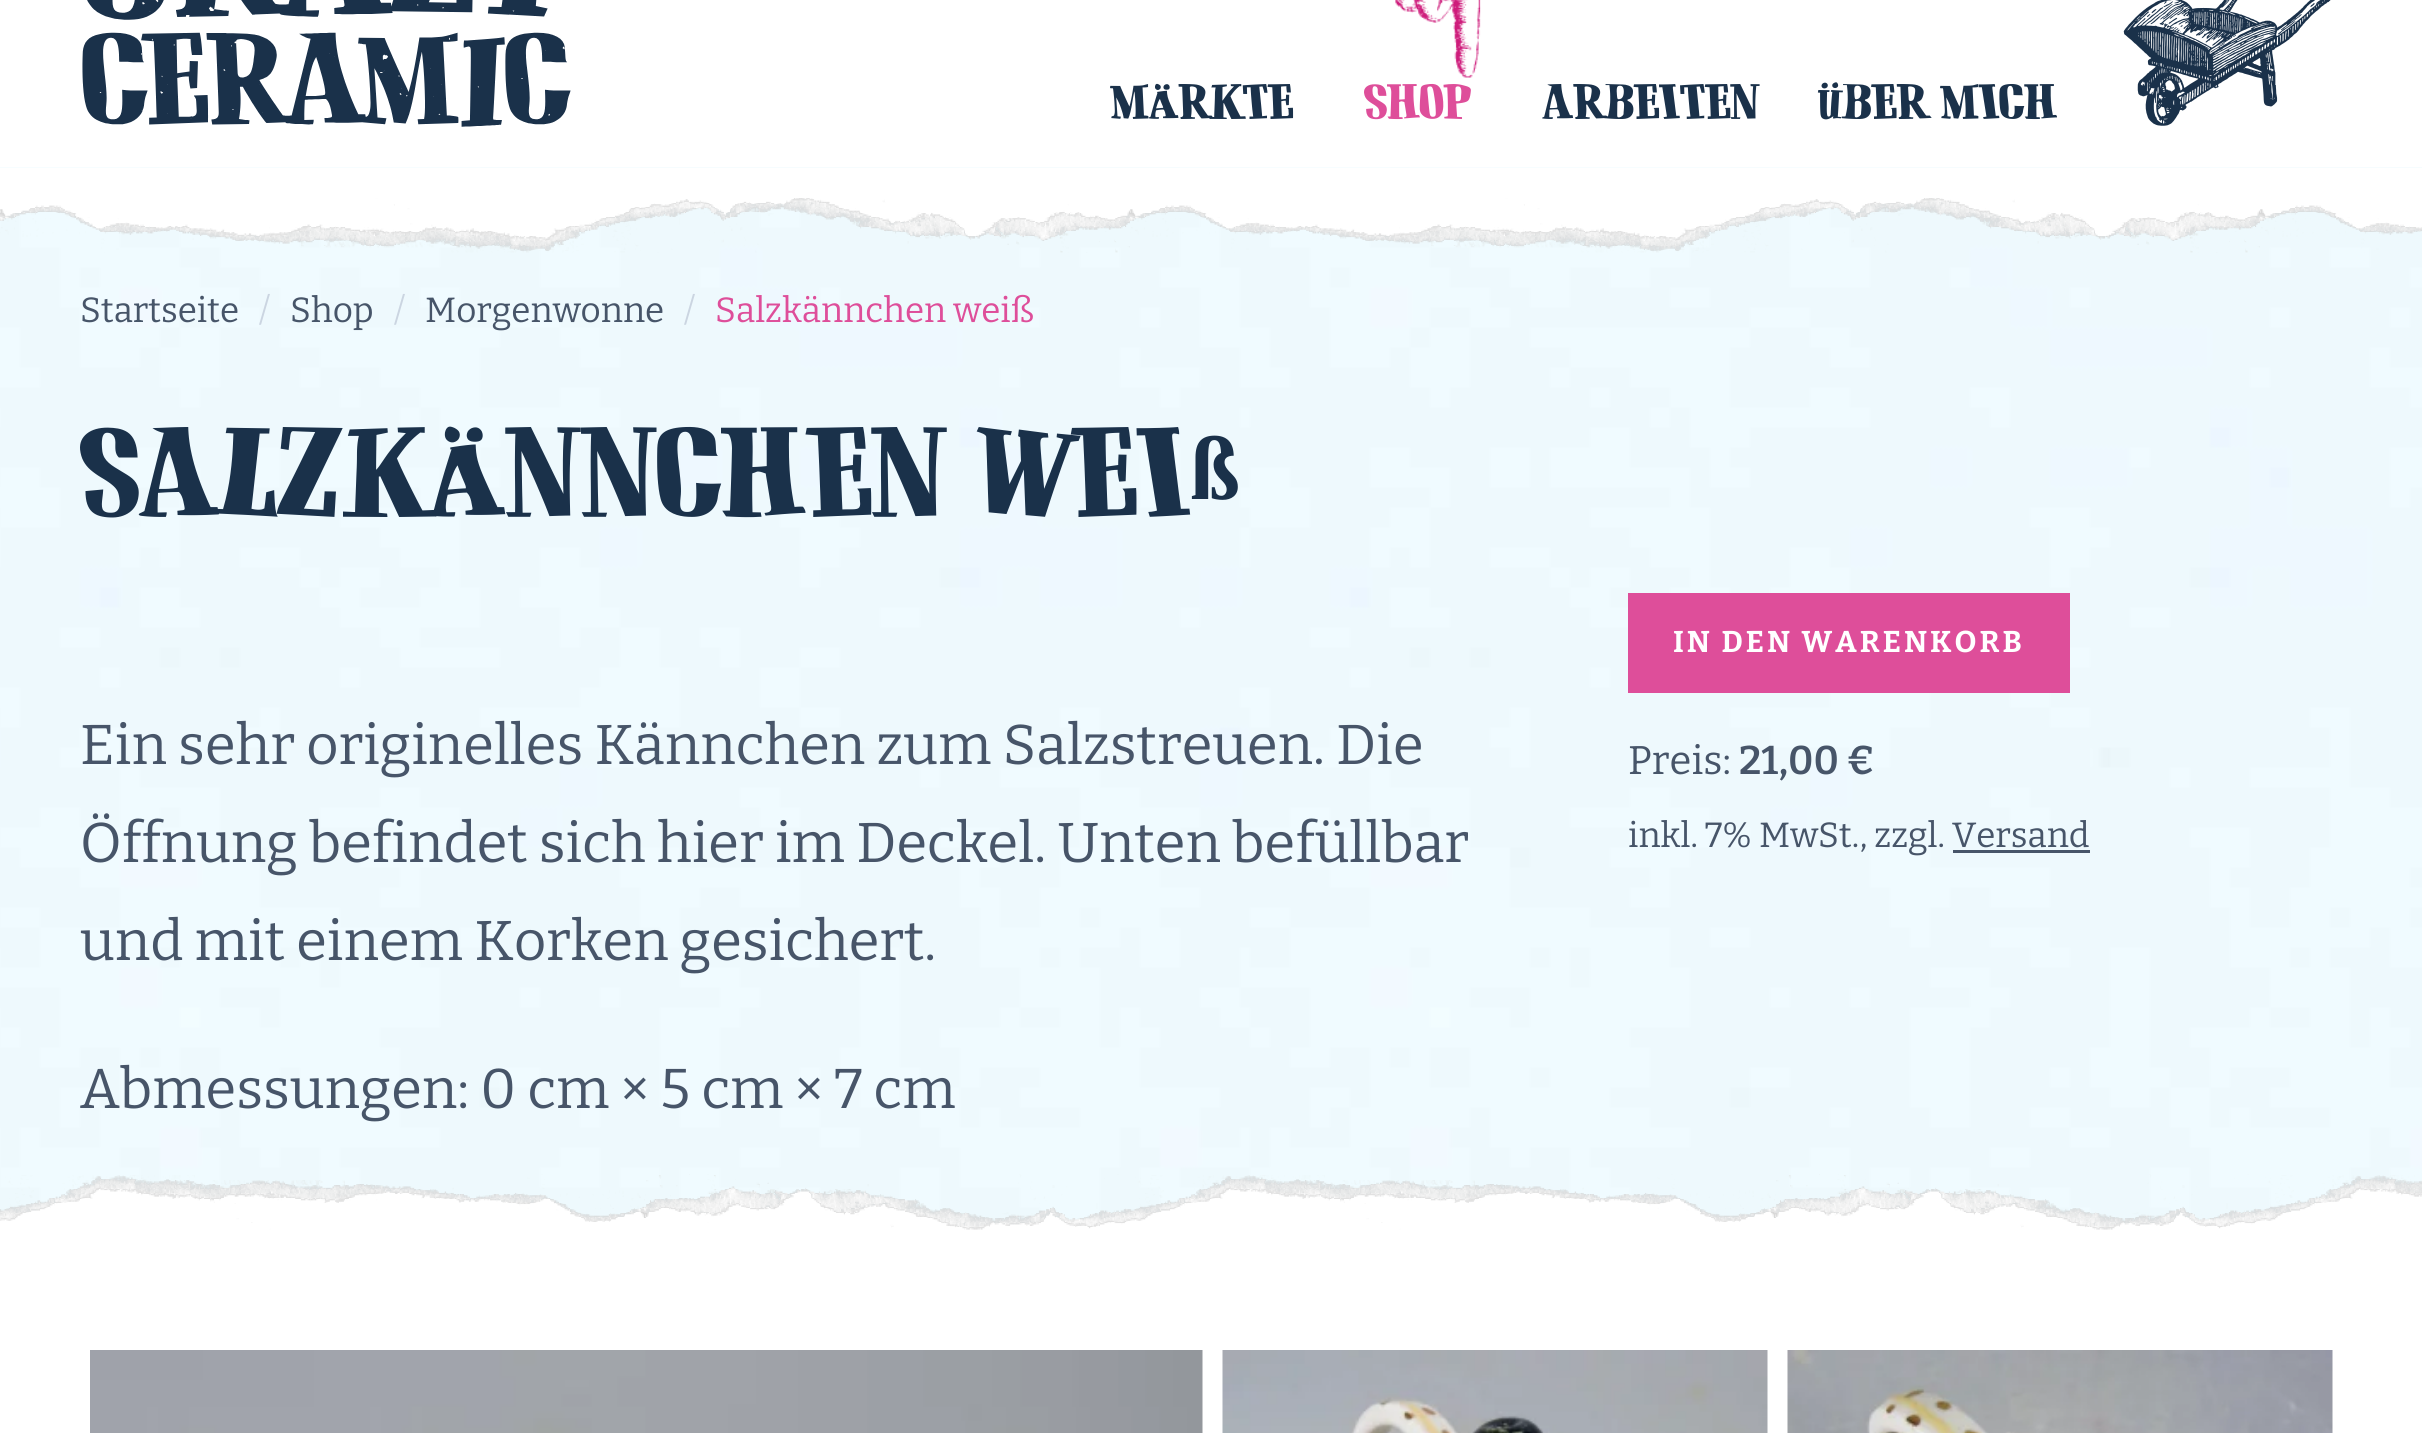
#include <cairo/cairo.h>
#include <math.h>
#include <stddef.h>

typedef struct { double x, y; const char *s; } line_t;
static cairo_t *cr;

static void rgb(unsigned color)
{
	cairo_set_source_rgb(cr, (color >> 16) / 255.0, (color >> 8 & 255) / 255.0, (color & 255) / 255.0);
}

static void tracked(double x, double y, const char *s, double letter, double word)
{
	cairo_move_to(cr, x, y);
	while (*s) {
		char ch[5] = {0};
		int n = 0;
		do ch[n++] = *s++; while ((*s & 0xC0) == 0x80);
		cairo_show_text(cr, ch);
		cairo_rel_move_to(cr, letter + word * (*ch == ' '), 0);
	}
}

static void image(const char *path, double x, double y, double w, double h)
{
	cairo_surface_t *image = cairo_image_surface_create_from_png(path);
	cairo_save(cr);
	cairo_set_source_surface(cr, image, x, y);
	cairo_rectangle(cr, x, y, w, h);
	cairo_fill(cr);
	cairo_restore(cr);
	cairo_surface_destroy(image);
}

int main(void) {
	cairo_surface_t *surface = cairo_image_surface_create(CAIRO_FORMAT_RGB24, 2422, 1433);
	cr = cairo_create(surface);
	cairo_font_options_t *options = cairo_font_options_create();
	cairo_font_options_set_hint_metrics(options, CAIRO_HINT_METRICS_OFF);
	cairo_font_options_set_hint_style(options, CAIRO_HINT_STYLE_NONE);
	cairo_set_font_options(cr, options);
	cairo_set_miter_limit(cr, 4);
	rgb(0xffffff);
	cairo_paint(cr);
	image("img/1.png", 82, 0, 489, 127);
	image("img/2.png", 1395, 0, 86, 78);
	image("img/3.png", 2123, 0, 208, 126);
	image("img/4.png", 0, 167, 2422, 1062);
	image("img/5.png", 0, 168, 2422, 85);
	rgb(0xde4e9a);
	cairo_rectangle(cr, 1628, 593, 442, 100);
	cairo_fill(cr);
	rgb(0x475569);
	cairo_rectangle(cr, 1953, 850, 137, 3);
	cairo_fill(cr);
	image("img/6.png", 0, 1174, 2422, 86);
	image("img/7.png", 90, 1350, 1113, 83);
	image("img/8.png", 1222, 1350, 546, 83);
	image("img/9.png", 1787, 1350, 546, 83);
	cairo_select_font_face(cr, "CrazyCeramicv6", CAIRO_FONT_SLANT_NORMAL, CAIRO_FONT_WEIGHT_NORMAL);
	cairo_set_font_size(cr, 35);
	rgb(0x1a314a);
	cairo_move_to(cr, 1110, 112);
	cairo_show_text(cr, "Märkte");
	rgb(0xde4e9a);
	cairo_move_to(cr, 1364, 112);
	cairo_show_text(cr, "Shop");
	rgb(0x1a314a);
	cairo_move_to(cr, 1542, 112);
	cairo_show_text(cr, "Arbeiten");
	cairo_move_to(cr, 1819, 112);
	cairo_show_text(cr, "Über mich");
	cairo_select_font_face(cr, "Bitter Thin", CAIRO_FONT_SLANT_NORMAL, CAIRO_FONT_WEIGHT_NORMAL);
	rgb(0x475569);
	cairo_move_to(cr, 80, 322);
	cairo_show_text(cr, "Startseite");
	rgb(0xcbd5e1);
	cairo_move_to(cr, 259, 322);
	cairo_show_text(cr, "/");
	rgb(0x475569);
	cairo_move_to(cr, 290, 322);
	cairo_show_text(cr, "Shop");
	rgb(0xcbd5e1);
	cairo_move_to(cr, 394, 322);
	cairo_show_text(cr, "/");
	rgb(0x475569);
	cairo_move_to(cr, 425, 322);
	cairo_show_text(cr, "Morgenwonne");
	rgb(0xcbd5e1);
	cairo_move_to(cr, 684, 322);
	cairo_show_text(cr, "/");
	rgb(0xde4e9a);
	cairo_move_to(cr, 715, 322);
	cairo_show_text(cr, "Salzkännchen weiß");
	cairo_select_font_face(cr, "CrazyCeramicv6", CAIRO_FONT_SLANT_NORMAL, CAIRO_FONT_WEIGHT_NORMAL);
	cairo_set_font_size(cr, 90);
	rgb(0x1a314a);
	cairo_move_to(cr, 80, 499);
	cairo_show_text(cr, "Salzkännchen wei");
	cairo_select_font_face(cr, "Liberation Serif", CAIRO_FONT_SLANT_NORMAL, CAIRO_FONT_WEIGHT_BOLD);
	cairo_move_to(cr, 1190, 499);
	cairo_show_text(cr, "ß");
	cairo_select_font_face(cr, "Bitter Thin", CAIRO_FONT_SLANT_NORMAL, CAIRO_FONT_WEIGHT_NORMAL);
	cairo_set_font_size(cr, 56);
	rgb(0x475569);
	{
		static const line_t items[] = {
			{80, 764, "Ein sehr originelles Kännchen zum Salzstreuen. Die"},
			{80, 862, "Öffnung befindet sich hier im Deckel. Unten befüllbar"},
			{80, 960, "und mit einem Korken gesichert."},
			{80, 1108, "Abmessungen: 0 cm × 5 cm × 7 cm"},
		};
		for (size_t i = 0; i < sizeof items / sizeof *items; i++) {
			cairo_move_to(cr, items[i].x, items[i].y);
			cairo_show_text(cr, items[i].s);
		}
	}
	cairo_select_font_face(cr, "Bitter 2 Thin", CAIRO_FONT_SLANT_NORMAL, CAIRO_FONT_WEIGHT_NORMAL);
	cairo_set_font_size(cr, 30);
	rgb(0xffffff);
	tracked(1673, 652, "IN DEN WARENKORB", 3, 0);
	cairo_select_font_face(cr, "Bitter Thin", CAIRO_FONT_SLANT_NORMAL, CAIRO_FONT_WEIGHT_NORMAL);
	cairo_set_font_size(cr, 40);
	rgb(0x475569);
	cairo_move_to(cr, 1628, 774);
	cairo_show_text(cr, "Preis:");
	cairo_select_font_face(cr, "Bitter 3 Thin", CAIRO_FONT_SLANT_NORMAL, CAIRO_FONT_WEIGHT_NORMAL);
	cairo_move_to(cr, 1739, 774);
	cairo_show_text(cr, "21,00 €");
	cairo_select_font_face(cr, "Bitter Thin", CAIRO_FONT_SLANT_NORMAL, CAIRO_FONT_WEIGHT_NORMAL);
	cairo_set_font_size(cr, 35);
	cairo_move_to(cr, 1628, 847);
	cairo_show_text(cr, "inkl. 7% MwSt., zzgl. Versand");
	cairo_surface_write_to_png(surface, "page.png");
	cairo_font_options_destroy(options);
	cairo_destroy(cr);
	cairo_surface_destroy(surface);
	return 0;
}
